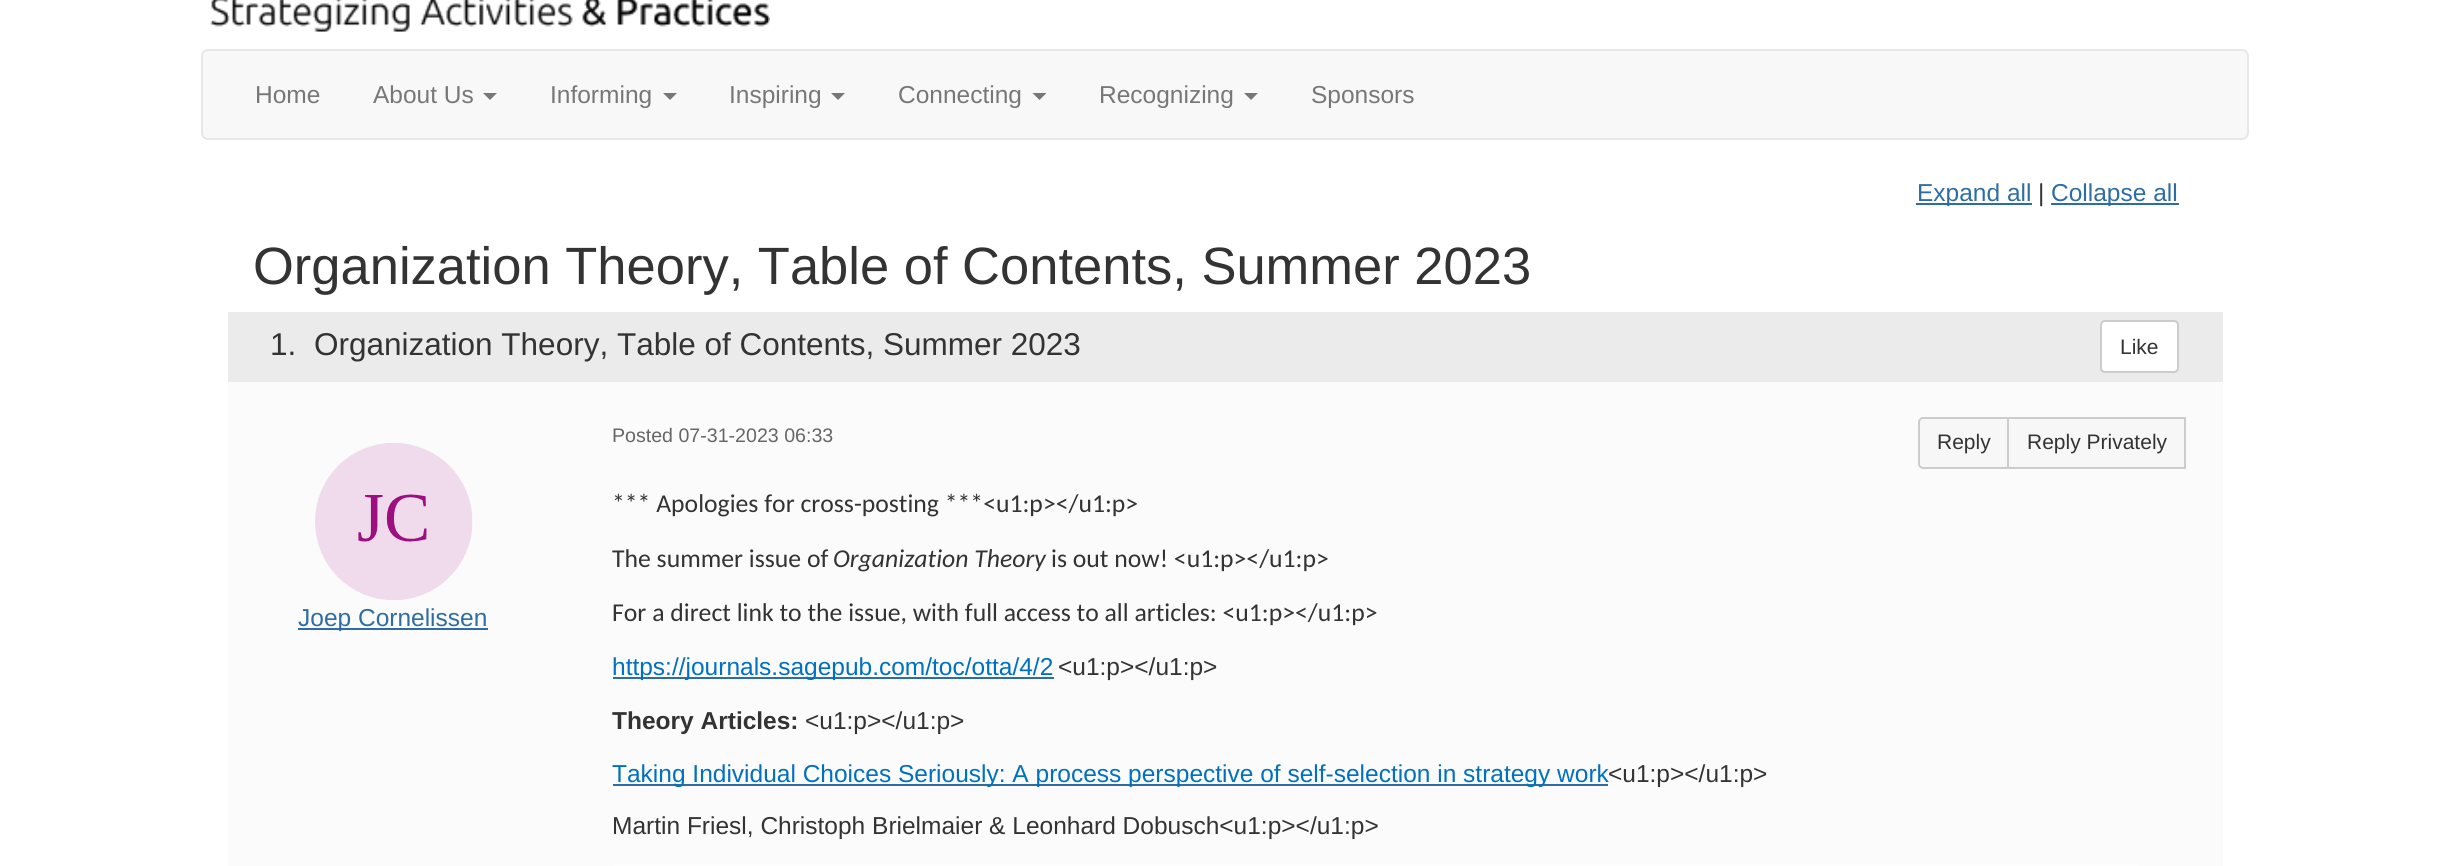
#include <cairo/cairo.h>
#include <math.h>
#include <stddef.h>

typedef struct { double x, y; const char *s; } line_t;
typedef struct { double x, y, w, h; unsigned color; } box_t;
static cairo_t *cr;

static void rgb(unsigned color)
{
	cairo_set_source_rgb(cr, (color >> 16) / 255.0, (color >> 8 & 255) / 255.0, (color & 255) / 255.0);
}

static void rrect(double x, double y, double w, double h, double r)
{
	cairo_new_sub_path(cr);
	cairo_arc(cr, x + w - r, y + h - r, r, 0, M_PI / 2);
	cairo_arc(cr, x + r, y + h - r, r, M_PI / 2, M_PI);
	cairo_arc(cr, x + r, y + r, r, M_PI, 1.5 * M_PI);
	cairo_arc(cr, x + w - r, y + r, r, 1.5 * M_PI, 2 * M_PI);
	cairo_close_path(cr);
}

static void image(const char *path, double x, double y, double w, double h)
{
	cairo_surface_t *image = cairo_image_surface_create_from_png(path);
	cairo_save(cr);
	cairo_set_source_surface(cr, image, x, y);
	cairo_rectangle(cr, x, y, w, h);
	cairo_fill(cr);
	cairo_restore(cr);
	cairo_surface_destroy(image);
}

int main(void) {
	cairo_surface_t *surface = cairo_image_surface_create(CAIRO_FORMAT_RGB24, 2447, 866);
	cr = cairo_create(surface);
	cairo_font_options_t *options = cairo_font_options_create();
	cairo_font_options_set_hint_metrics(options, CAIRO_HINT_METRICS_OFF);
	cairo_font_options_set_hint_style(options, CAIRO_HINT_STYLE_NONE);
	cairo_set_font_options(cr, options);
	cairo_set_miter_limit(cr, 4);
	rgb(0xffffff);
	cairo_paint(cr);
	image("img/1.png", 210, 0, 560, 32);
	rgb(0xf8f8f8);
	rrect(202, 50, 2046, 89, 6);
	cairo_fill_preserve(cr);
	rgb(0xe7e7e7);
	cairo_stroke(cr);
	rgb(0x777777);
	cairo_new_path(cr);
	cairo_move_to(cr, 483, 93);
	cairo_line_to(cr, 497, 93);
	cairo_line_to(cr, 490, 100);
	cairo_close_path(cr);
	cairo_fill(cr);
	cairo_new_path(cr);
	cairo_move_to(cr, 663, 93);
	cairo_line_to(cr, 677, 93);
	cairo_line_to(cr, 670, 100);
	cairo_close_path(cr);
	cairo_fill(cr);
	cairo_new_path(cr);
	cairo_move_to(cr, 831, 93);
	cairo_line_to(cr, 845, 93);
	cairo_line_to(cr, 838, 100);
	cairo_close_path(cr);
	cairo_fill(cr);
	cairo_new_path(cr);
	cairo_move_to(cr, 1032.5, 93);
	cairo_line_to(cr, 1046.5, 93);
	cairo_line_to(cr, 1039.5, 100);
	cairo_close_path(cr);
	cairo_fill(cr);
	cairo_new_path(cr);
	cairo_move_to(cr, 1244, 93);
	cairo_line_to(cr, 1258, 93);
	cairo_line_to(cr, 1251, 100);
	cairo_close_path(cr);
	cairo_fill(cr);
	{
		static const box_t items[] = {
			{1916, 203, 116, 2, 0x2e6da4},
			{2051, 203, 128, 2, 0x2e6da4},
			{228, 382, 1995, 484, 0xfbfbfb},
			{228, 312, 1995, 70, 0xebebeb},
		};
		for (size_t i = 0; i < sizeof items / sizeof *items; i++) {
			rgb(items[i].color);
			cairo_rectangle(cr, items[i].x, items[i].y, items[i].w, items[i].h);
			cairo_fill(cr);
		}
	}
	rgb(0xffffff);
	rrect(2101, 321, 77, 51, 4);
	cairo_fill_preserve(cr);
	rgb(0xcccccc);
	cairo_stroke(cr);
	image("img/2.png", 315, 443, 158, 157);
	rgb(0x2e6da4);
	cairo_rectangle(cr, 298, 628, 190, 2);
	cairo_fill(cr);
	rgb(0xf7f7f7);
	cairo_new_path(cr);
	cairo_move_to(cr, 1923, 418);
	cairo_line_to(cr, 2008, 418);
	cairo_line_to(cr, 2008, 468);
	cairo_line_to(cr, 1923, 468);
	cairo_curve_to(cr, 1921, 468, 1919, 466, 1919, 464);
	cairo_line_to(cr, 1919, 422);
	cairo_curve_to(cr, 1919, 420, 1921, 418, 1923, 418);
	cairo_close_path(cr);
	cairo_fill_preserve(cr);
	rgb(0xcccccc);
	cairo_stroke(cr);
	rgb(0xf7f7f7);
	cairo_rectangle(cr, 2008, 418, 177, 50);
	cairo_fill_preserve(cr);
	rgb(0xcccccc);
	cairo_stroke(cr);
	{
		static const box_t items[] = {
			{613, 677, 441, 2, 0x2e6da4},
			{613, 784, 995, 2, 0x2e6da4},
			{613, 865, 1526, 1, 0xffffff},
		};
		for (size_t i = 0; i < sizeof items / sizeof *items; i++) {
			rgb(items[i].color);
			cairo_rectangle(cr, items[i].x, items[i].y, items[i].w, items[i].h);
			cairo_fill(cr);
		}
	}
	cairo_select_font_face(cr, "Liberation Sans", CAIRO_FONT_SLANT_NORMAL, CAIRO_FONT_WEIGHT_NORMAL);
	cairo_set_font_size(cr, 24.5);
	rgb(0x777777);
	{
		static const line_t items[] = {
			{255, 103, "Home"},
			{373, 103, "About Us"},
			{550, 103, "Informing"},
			{729, 103, "Inspiring"},
			{898, 103, "Connecting"},
			{1099, 103, "Recognizing"},
			{1311, 103, "Sponsors"},
		};
		for (size_t i = 0; i < sizeof items / sizeof *items; i++) {
			cairo_move_to(cr, items[i].x, items[i].y);
			cairo_show_text(cr, items[i].s);
		}
	}
	rgb(0x2e6da4);
	cairo_move_to(cr, 1917, 201);
	cairo_show_text(cr, "Expand all");
	rgb(0x333333);
	cairo_move_to(cr, 2038, 201);
	cairo_show_text(cr, "|");
	rgb(0x2e6da4);
	cairo_move_to(cr, 2051, 201);
	cairo_show_text(cr, "Collapse all");
	cairo_set_font_size(cr, 52.5);
	rgb(0x333333);
	cairo_move_to(cr, 253, 284);
	cairo_show_text(cr, "Organization Theory, Table of Contents, Summer 2023");
	cairo_set_font_size(cr, 31.5);
	cairo_move_to(cr, 270, 355);
	cairo_show_text(cr, "1.");
	cairo_move_to(cr, 314, 355);
	cairo_show_text(cr, "Organization Theory, Table of Contents, Summer 2023");
	cairo_set_font_size(cr, 21);
	cairo_move_to(cr, 2120, 354);
	cairo_show_text(cr, "Like");
	cairo_set_font_size(cr, 24.5);
	rgb(0x2e6da4);
	cairo_move_to(cr, 298, 626);
	cairo_show_text(cr, "Joep Cornelissen");
	cairo_set_font_size(cr, 19.6);
	rgb(0x666666);
	cairo_move_to(cr, 612, 442);
	cairo_show_text(cr, "Posted 07-31-2023 06:33");
	cairo_set_font_size(cr, 21);
	rgb(0x333333);
	cairo_move_to(cr, 1937, 449);
	cairo_show_text(cr, "Reply");
	cairo_move_to(cr, 2027, 449);
	cairo_show_text(cr, "Reply Privately");
	cairo_select_font_face(cr, "Carlito", CAIRO_FONT_SLANT_NORMAL, CAIRO_FONT_WEIGHT_NORMAL);
	cairo_set_font_size(cr, 25.7);
	cairo_move_to(cr, 612, 512);
	cairo_show_text(cr, "*** Apologies for cross-posting ***<u1:p></u1:p>");
	cairo_move_to(cr, 612, 567);
	cairo_show_text(cr, "The summer issue of");
	cairo_select_font_face(cr, "Carlito", CAIRO_FONT_SLANT_ITALIC, CAIRO_FONT_WEIGHT_NORMAL);
	cairo_move_to(cr, 833, 567);
	cairo_show_text(cr, "Organization Theory");
	cairo_select_font_face(cr, "Carlito", CAIRO_FONT_SLANT_NORMAL, CAIRO_FONT_WEIGHT_NORMAL);
	cairo_move_to(cr, 1051, 567);
	cairo_show_text(cr, "is out now! <u1:p></u1:p>");
	cairo_move_to(cr, 612, 621);
	cairo_show_text(cr, "For a direct link to the issue, with full access to all articles: <u1:p></u1:p>");
	cairo_select_font_face(cr, "Liberation Sans", CAIRO_FONT_SLANT_NORMAL, CAIRO_FONT_WEIGHT_NORMAL);
	cairo_set_font_size(cr, 24.5);
	rgb(0x0070c0);
	cairo_move_to(cr, 612, 675);
	cairo_show_text(cr, "https://journals.sagepub.com/toc/otta/4/2");
	rgb(0x333333);
	cairo_move_to(cr, 1058, 675);
	cairo_show_text(cr, "<u1:p></u1:p>");
	cairo_select_font_face(cr, "Liberation Sans", CAIRO_FONT_SLANT_NORMAL, CAIRO_FONT_WEIGHT_BOLD);
	cairo_move_to(cr, 612, 729);
	cairo_show_text(cr, "Theory Articles:");
	cairo_select_font_face(cr, "Liberation Sans", CAIRO_FONT_SLANT_NORMAL, CAIRO_FONT_WEIGHT_NORMAL);
	cairo_move_to(cr, 805, 729);
	cairo_show_text(cr, "<u1:p></u1:p>");
	rgb(0x0070c0);
	cairo_move_to(cr, 612, 782);
	cairo_show_text(cr, "Taking Individual Choices Seriously: A process perspective of self-selection in strategy work");
	rgb(0x333333);
	cairo_move_to(cr, 1608, 782);
	cairo_show_text(cr, "<u1:p></u1:p>");
	cairo_move_to(cr, 612, 834);
	cairo_show_text(cr, "Martin Friesl, Christoph Brielmaier & Leonhard Dobusch<u1:p></u1:p>");
	cairo_surface_write_to_png(surface, "page.png");
	cairo_font_options_destroy(options);
	cairo_destroy(cr);
	cairo_surface_destroy(surface);
	return 0;
}
